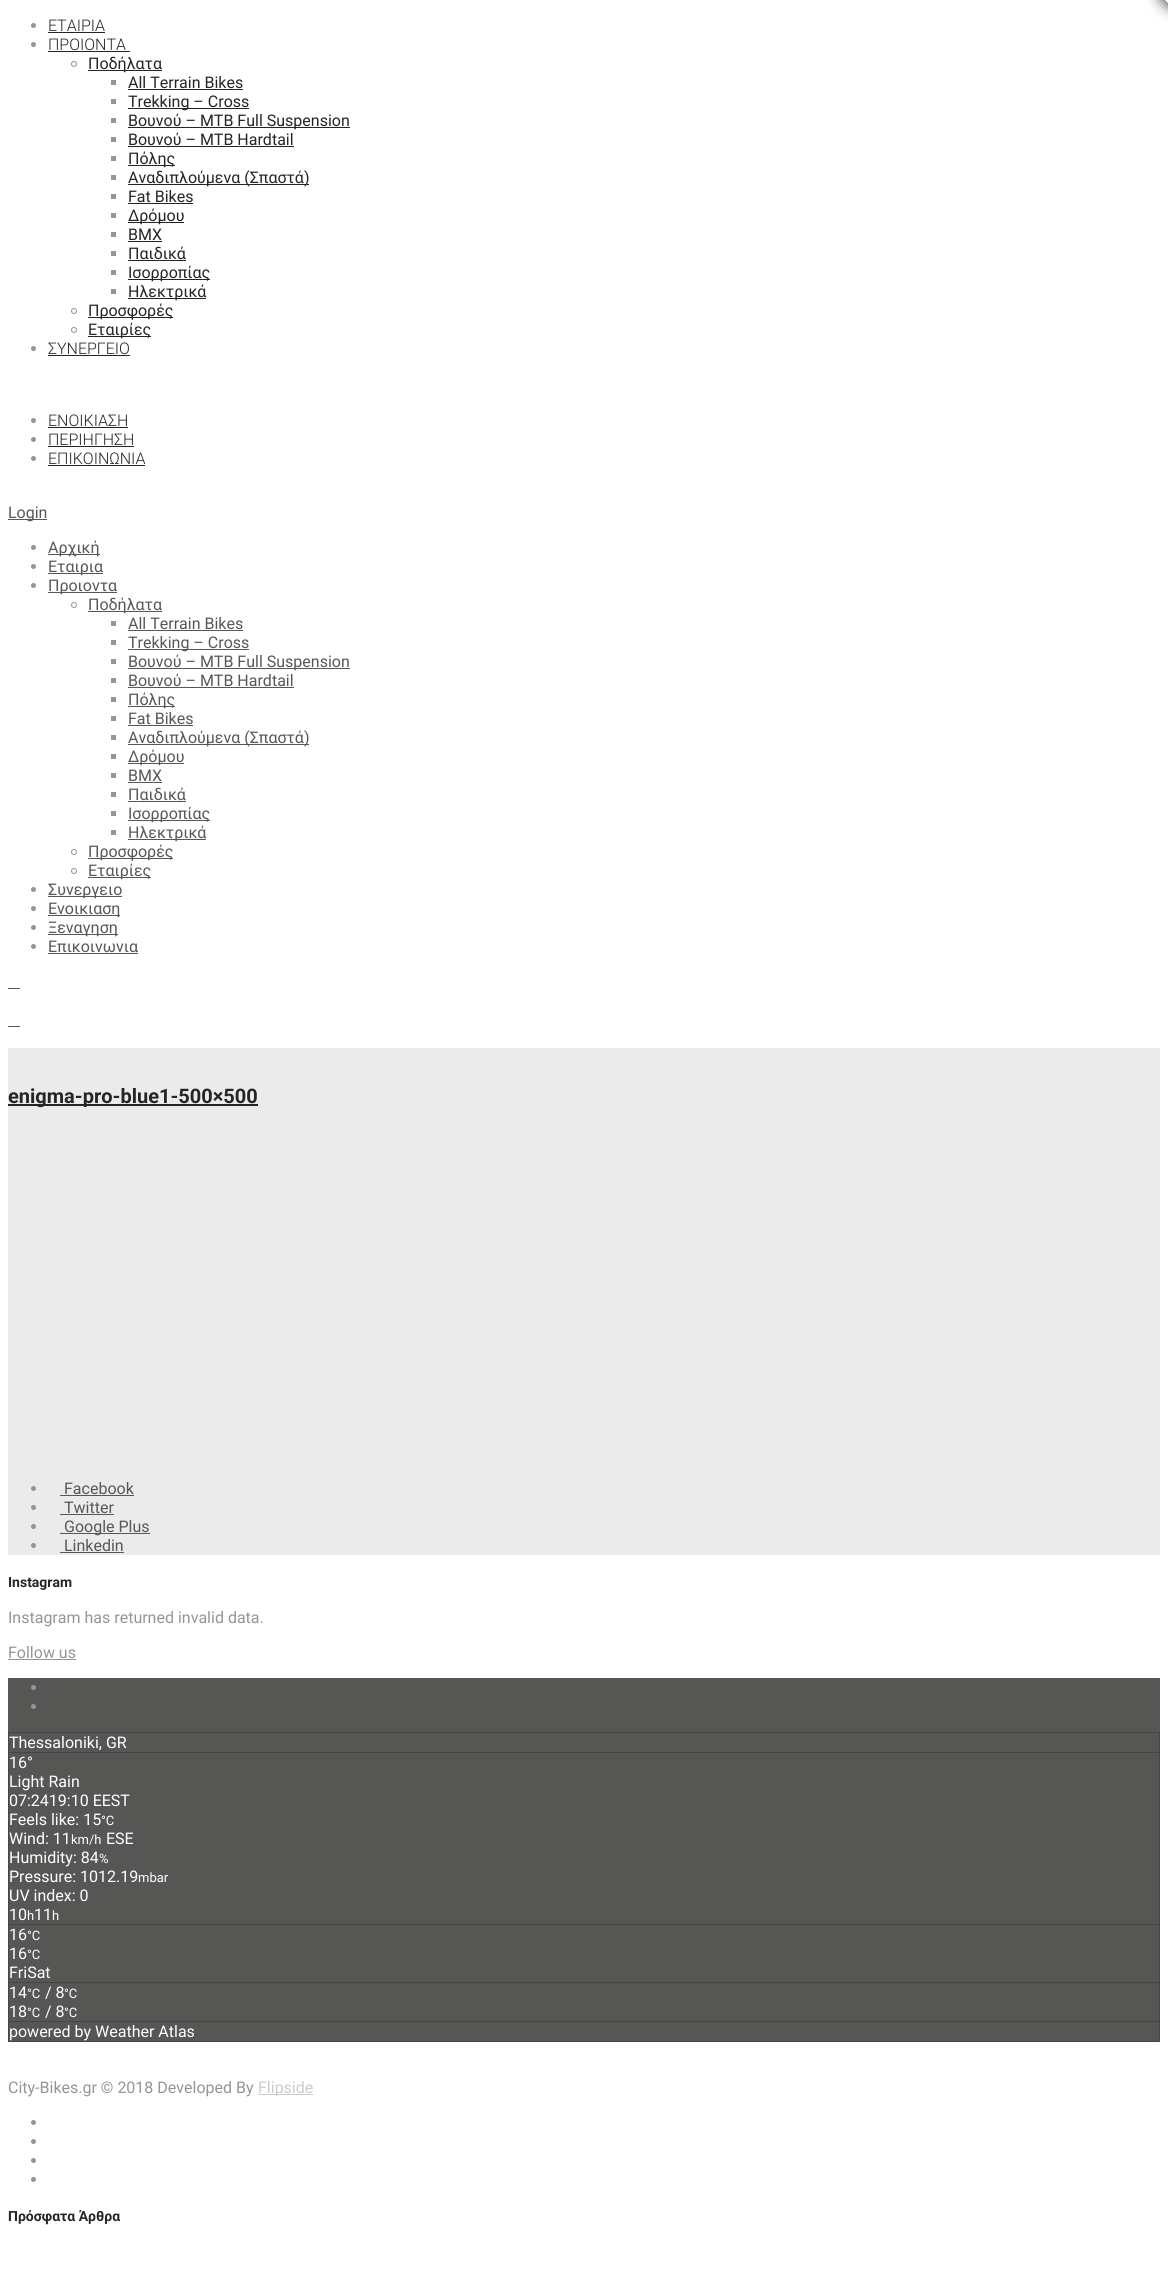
#include <cairo/cairo.h>
#include <math.h>
#include <stddef.h>

typedef struct { double x, y; const char *s; } line_t;
typedef struct { double x, y, w, h; unsigned color; } box_t;
static cairo_t *cr;

static void rgb(unsigned color)
{
	cairo_set_source_rgb(cr, (color >> 16) / 255.0, (color >> 8 & 255) / 255.0, (color & 255) / 255.0);
}

static void rrect(double x, double y, double w, double h, double r)
{
	cairo_new_sub_path(cr);
	cairo_arc(cr, x + w - r, y + h - r, r, 0, M_PI / 2);
	cairo_arc(cr, x + r, y + h - r, r, M_PI / 2, M_PI);
	cairo_arc(cr, x + r, y + r, r, M_PI, 1.5 * M_PI);
	cairo_arc(cr, x + w - r, y + r, r, 1.5 * M_PI, 2 * M_PI);
	cairo_close_path(cr);
}

static void soft_shadow(double x, double y, double w, double h, double r, double blur, double alpha)
{
	cairo_push_group_with_content(cr, CAIRO_CONTENT_ALPHA);
	cairo_set_operator(cr, CAIRO_OPERATOR_SOURCE);
	for (int i = 15; i >= -15 && fmin(w, h) + blur * i / 3 > 0; i -= 2) {
		double e = blur * i / 6;
		cairo_set_source_rgba(cr, 0, 0, 0, alpha * erfc((i - 1) / 8.5) / 2);
		rrect(x - e, y - e, w + 2 * e, h + 2 * e, fmax(0, fmin(r + e + blur * .6, fmin(w, h) / 2 + e)));
		cairo_fill(cr);
	}
	cairo_pattern_t *soft = cairo_pop_group(cr);
	cairo_mask(cr, soft);
	cairo_pattern_destroy(soft);
}

int main(void) {
	cairo_surface_t *surface = cairo_image_surface_create(CAIRO_FORMAT_RGB24, 1168, 2269);
	cr = cairo_create(surface);
	cairo_font_options_t *options = cairo_font_options_create();
	cairo_font_options_set_hint_metrics(options, CAIRO_HINT_METRICS_OFF);
	cairo_font_options_set_hint_style(options, CAIRO_HINT_STYLE_NONE);
	cairo_set_font_options(cr, options);
	cairo_set_miter_limit(cr, 4);
	rgb(0xffffff);
	cairo_paint(cr);
	rgb(0x020202);
	soft_shadow(1161, -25, 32, 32, 16, 7.5, 0.75);
	rrect(1163, -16, 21, 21, 14);
	rgb(0xffffff);
	cairo_stroke(cr);
	rgb(0x959595);
	cairo_arc(cr, 33.5, 25.5, 2.5, 0, 2 * M_PI);
	cairo_fill(cr);
	rgb(0x252525);
	cairo_rectangle(cr, 48, 32, 57, 1);
	cairo_fill(cr);
	rgb(0x959595);
	cairo_arc(cr, 33.5, 44.5, 2.5, 0, 2 * M_PI);
	cairo_fill(cr);
	rgb(0x252525);
	cairo_rectangle(cr, 48, 51, 82, 1);
	cairo_fill(cr);
	cairo_arc(cr, 74, 64, 2.5, 0, 2 * M_PI);
	rgb(0x959595);
	cairo_set_line_width(cr, 1);
	cairo_stroke(cr);
	{
		static const box_t items[] = {
			{88, 70, 74, 1, 0x252525},
			{111, 80, 5, 5, 0x959595},
			{128, 89, 115, 1, 0x252525},
			{111, 99, 5, 5, 0x959595},
			{128, 108, 121, 1, 0x252525},
			{111, 118, 5, 5, 0x959595},
			{128, 127, 222, 1, 0x252525},
			{111, 137, 5, 5, 0x959595},
			{128, 146, 166, 1, 0x252525},
			{111, 156, 5, 5, 0x959595},
			{128, 165, 47, 1, 0x252525},
			{111, 175, 5, 5, 0x959595},
			{128, 184, 181, 1, 0x252525},
			{111, 194, 5, 5, 0x959595},
			{128, 203, 65, 1, 0x252525},
			{111, 213, 5, 5, 0x959595},
			{128, 222, 56, 1, 0x252525},
			{111, 232, 5, 5, 0x959595},
			{128, 241, 34, 1, 0x252525},
			{111, 251, 5, 5, 0x959595},
			{128, 260, 58, 1, 0x252525},
			{111, 270, 5, 5, 0x959595},
			{128, 279, 82, 1, 0x252525},
			{111, 289, 5, 5, 0x959595},
			{128, 298, 78, 1, 0x252525},
		};
		for (size_t i = 0; i < sizeof items / sizeof *items; i++) {
			rgb(items[i].color);
			cairo_rectangle(cr, items[i].x, items[i].y, items[i].w, items[i].h);
			cairo_fill(cr);
		}
	}
	cairo_arc(cr, 74, 311, 2.5, 0, 2 * M_PI);
	rgb(0x959595);
	cairo_stroke(cr);
	rgb(0x252525);
	cairo_rectangle(cr, 88, 317, 85, 1);
	cairo_fill(cr);
	cairo_arc(cr, 74, 330, 2.5, 0, 2 * M_PI);
	rgb(0x959595);
	cairo_stroke(cr);
	rgb(0x252525);
	cairo_rectangle(cr, 88, 336, 63, 1);
	cairo_fill(cr);
	rgb(0x959595);
	cairo_arc(cr, 33.5, 348.5, 2.5, 0, 2 * M_PI);
	cairo_fill(cr);
	rgb(0x252525);
	cairo_rectangle(cr, 48, 355, 82, 1);
	cairo_fill(cr);
	rgb(0x959595);
	cairo_arc(cr, 33.5, 420.5, 2.5, 0, 2 * M_PI);
	cairo_fill(cr);
	rgb(0x252525);
	cairo_rectangle(cr, 48, 427, 80, 1);
	cairo_fill(cr);
	rgb(0x959595);
	cairo_arc(cr, 33.5, 439.5, 2.5, 0, 2 * M_PI);
	cairo_fill(cr);
	rgb(0x252525);
	cairo_rectangle(cr, 48, 446, 86, 1);
	cairo_fill(cr);
	rgb(0x959595);
	cairo_arc(cr, 33.5, 458.5, 2.5, 0, 2 * M_PI);
	cairo_fill(cr);
	rgb(0x252525);
	cairo_rectangle(cr, 48, 465, 97, 1);
	cairo_fill(cr);
	rgb(0x575755);
	cairo_rectangle(cr, 8, 519, 39, 1);
	cairo_fill(cr);
	rgb(0x959595);
	cairo_arc(cr, 33.5, 547.5, 2.5, 0, 2 * M_PI);
	cairo_fill(cr);
	rgb(0x575755);
	cairo_rectangle(cr, 48, 554, 52, 1);
	cairo_fill(cr);
	rgb(0x959595);
	cairo_arc(cr, 33.5, 566.5, 2.5, 0, 2 * M_PI);
	cairo_fill(cr);
	rgb(0x575755);
	cairo_rectangle(cr, 48, 573, 55, 1);
	cairo_fill(cr);
	rgb(0x959595);
	cairo_arc(cr, 33.5, 585.5, 2.5, 0, 2 * M_PI);
	cairo_fill(cr);
	rgb(0x575755);
	cairo_rectangle(cr, 48, 592, 69, 1);
	cairo_fill(cr);
	cairo_arc(cr, 74, 605, 2.5, 0, 2 * M_PI);
	rgb(0x959595);
	cairo_stroke(cr);
	{
		static const box_t items[] = {
			{88, 611, 74, 1, 0x575755},
			{111, 621, 5, 5, 0x959595},
			{128, 630, 115, 1, 0x575755},
			{111, 640, 5, 5, 0x959595},
			{128, 649, 121, 1, 0x575755},
			{111, 659, 5, 5, 0x959595},
			{128, 668, 222, 1, 0x575755},
			{111, 678, 5, 5, 0x959595},
			{128, 687, 166, 1, 0x575755},
			{111, 697, 5, 5, 0x959595},
			{128, 706, 47, 1, 0x575755},
			{111, 716, 5, 5, 0x959595},
			{128, 725, 65, 1, 0x575755},
			{111, 735, 5, 5, 0x959595},
			{128, 744, 181, 1, 0x575755},
			{111, 754, 5, 5, 0x959595},
			{128, 763, 56, 1, 0x575755},
			{111, 773, 5, 5, 0x959595},
			{128, 782, 34, 1, 0x575755},
			{111, 792, 5, 5, 0x959595},
			{128, 801, 58, 1, 0x575755},
			{111, 811, 5, 5, 0x959595},
			{128, 820, 82, 1, 0x575755},
			{111, 830, 5, 5, 0x959595},
			{128, 839, 78, 1, 0x575755},
		};
		for (size_t i = 0; i < sizeof items / sizeof *items; i++) {
			rgb(items[i].color);
			cairo_rectangle(cr, items[i].x, items[i].y, items[i].w, items[i].h);
			cairo_fill(cr);
		}
	}
	cairo_arc(cr, 74, 852, 2.5, 0, 2 * M_PI);
	rgb(0x959595);
	cairo_stroke(cr);
	rgb(0x575755);
	cairo_rectangle(cr, 88, 858, 85, 1);
	cairo_fill(cr);
	cairo_arc(cr, 74, 871, 2.5, 0, 2 * M_PI);
	rgb(0x959595);
	cairo_stroke(cr);
	rgb(0x575755);
	cairo_rectangle(cr, 88, 877, 63, 1);
	cairo_fill(cr);
	rgb(0x959595);
	cairo_arc(cr, 33.5, 889.5, 2.5, 0, 2 * M_PI);
	cairo_fill(cr);
	rgb(0x575755);
	cairo_rectangle(cr, 48, 896, 74, 1);
	cairo_fill(cr);
	rgb(0x959595);
	cairo_arc(cr, 33.5, 908.5, 2.5, 0, 2 * M_PI);
	cairo_fill(cr);
	rgb(0x575755);
	cairo_rectangle(cr, 48, 915, 72, 1);
	cairo_fill(cr);
	rgb(0x959595);
	cairo_arc(cr, 33.5, 927.5, 2.5, 0, 2 * M_PI);
	cairo_fill(cr);
	rgb(0x575755);
	cairo_rectangle(cr, 48, 934, 70, 1);
	cairo_fill(cr);
	rgb(0x959595);
	cairo_arc(cr, 33.5, 946.5, 2.5, 0, 2 * M_PI);
	cairo_fill(cr);
	{
		static const box_t items[] = {
			{48, 953, 90, 1, 0x575755},
			{8, 988, 12, 1, 0x575755},
			{8, 1026, 12, 1, 0x575755},
			{8, 1048, 1152, 507, 0xebebeb},
			{8, 1104, 250, 2, 0x252525},
		};
		for (size_t i = 0; i < sizeof items / sizeof *items; i++) {
			rgb(items[i].color);
			cairo_rectangle(cr, items[i].x, items[i].y, items[i].w, items[i].h);
			cairo_fill(cr);
		}
	}
	rgb(0x959595);
	cairo_arc(cr, 33.5, 1488.5, 2.5, 0, 2 * M_PI);
	cairo_fill(cr);
	rgb(0x575755);
	cairo_rectangle(cr, 60, 1495, 74, 1);
	cairo_fill(cr);
	rgb(0x959595);
	cairo_arc(cr, 33.5, 1507.5, 2.5, 0, 2 * M_PI);
	cairo_fill(cr);
	rgb(0x575755);
	cairo_rectangle(cr, 60, 1514, 54, 1);
	cairo_fill(cr);
	rgb(0x959595);
	cairo_arc(cr, 33.5, 1526.5, 2.5, 0, 2 * M_PI);
	cairo_fill(cr);
	rgb(0x575755);
	cairo_rectangle(cr, 60, 1533, 90, 1);
	cairo_fill(cr);
	rgb(0x959595);
	cairo_arc(cr, 33.5, 1545.5, 2.5, 0, 2 * M_PI);
	cairo_fill(cr);
	{
		static const box_t items[] = {
			{60, 1552, 64, 1, 0x575755},
			{8, 1659, 68, 1, 0x959595},
			{8, 1678, 1152, 363, 0x565654},
		};
		for (size_t i = 0; i < sizeof items / sizeof *items; i++) {
			rgb(items[i].color);
			cairo_rectangle(cr, items[i].x, items[i].y, items[i].w, items[i].h);
			cairo_fill(cr);
		}
	}
	rgb(0x959595);
	cairo_arc(cr, 33.5, 1687.5, 2.5, 0, 2 * M_PI);
	cairo_fill(cr);
	cairo_arc(cr, 33.5, 1706.5, 2.5, 0, 2 * M_PI);
	cairo_fill(cr);
	cairo_rectangle(cr, 8.5, 1732.5, 1151, 309);
	rgb(0x454543);
	cairo_stroke(cr);
	{
		static const box_t items[] = {
			{9, 1752, 1150, 1, 0x454543},
			{9, 1924, 1150, 1, 0x454543},
			{9, 1982, 1150, 1, 0x454543},
			{9, 2021, 1150, 1, 0x454543},
			{258, 2094, 55, 1, 0xcccccc},
		};
		for (size_t i = 0; i < sizeof items / sizeof *items; i++) {
			rgb(items[i].color);
			cairo_rectangle(cr, items[i].x, items[i].y, items[i].w, items[i].h);
			cairo_fill(cr);
		}
	}
	rgb(0x959595);
	cairo_arc(cr, 33.5, 2122.5, 2.5, 0, 2 * M_PI);
	cairo_fill(cr);
	cairo_arc(cr, 33.5, 2141.5, 2.5, 0, 2 * M_PI);
	cairo_fill(cr);
	cairo_arc(cr, 33.5, 2160.5, 2.5, 0, 2 * M_PI);
	cairo_fill(cr);
	cairo_arc(cr, 33.5, 2179.5, 2.5, 0, 2 * M_PI);
	cairo_fill(cr);
	cairo_select_font_face(cr, "Roboto Light", CAIRO_FONT_SLANT_NORMAL, CAIRO_FONT_WEIGHT_NORMAL);
	cairo_set_font_size(cr, 16);
	rgb(0x252525);
	cairo_move_to(cr, 48, 31);
	cairo_show_text(cr, "ΕΤΑΙΡΙΑ");
	cairo_move_to(cr, 48, 50);
	cairo_show_text(cr, "ΠΡΟΙΟΝΤΑ");
	cairo_select_font_face(cr, "Roboto", CAIRO_FONT_SLANT_NORMAL, CAIRO_FONT_WEIGHT_NORMAL);
	{
		static const line_t items[] = {
			{88, 69, "Ποδήλατα"},
			{128, 88, "All Terrain Bikes"},
			{128, 107, "Trekking – Cross"},
			{128, 126, "Βουνού – MTB Full Suspension"},
			{128, 145, "Βουνού – MTB Hardtail"},
			{128, 164, "Πόλης"},
			{128, 183, "Αναδιπλούμενα (Σπαστά)"},
			{128, 202, "Fat Bikes"},
			{128, 221, "Δρόμου"},
			{128, 240, "ΒΜΧ"},
			{128, 259, "Παιδικά"},
			{128, 278, "Ισορροπίας"},
			{128, 297, "Ηλεκτρικά"},
			{88, 316, "Προσφορές"},
			{88, 335, "Εταιρίες"},
		};
		for (size_t i = 0; i < sizeof items / sizeof *items; i++) {
			cairo_move_to(cr, items[i].x, items[i].y);
			cairo_show_text(cr, items[i].s);
		}
	}
	cairo_select_font_face(cr, "Roboto Light", CAIRO_FONT_SLANT_NORMAL, CAIRO_FONT_WEIGHT_NORMAL);
	{
		static const line_t items[] = {
			{48, 354, "ΣΥΝΕΡΓΕΙΟ"},
			{48, 426, "ΕΝΟΙΚΙΑΣΗ"},
			{48, 445, "ΠΕΡΙΗΓΗΣΗ"},
			{48, 464, "ΕΠΙΚΟΙΝΩΝΙΑ"},
		};
		for (size_t i = 0; i < sizeof items / sizeof *items; i++) {
			cairo_move_to(cr, items[i].x, items[i].y);
			cairo_show_text(cr, items[i].s);
		}
	}
	cairo_select_font_face(cr, "Roboto", CAIRO_FONT_SLANT_NORMAL, CAIRO_FONT_WEIGHT_NORMAL);
	rgb(0x575755);
	{
		static const line_t items[] = {
			{8, 518, "Login"},
			{48, 553, "Αρχική"},
			{48, 572, "Εταιρια"},
			{48, 591, "Προιοντα"},
			{88, 610, "Ποδήλατα"},
			{128, 629, "All Terrain Bikes"},
			{128, 648, "Trekking – Cross"},
			{128, 667, "Βουνού – MTB Full Suspension"},
			{128, 686, "Βουνού – MTB Hardtail"},
			{128, 705, "Πόλης"},
			{128, 724, "Fat Bikes"},
			{128, 743, "Αναδιπλούμενα (Σπαστά)"},
			{128, 762, "Δρόμου"},
			{128, 781, "BMX"},
			{128, 800, "Παιδικά"},
			{128, 819, "Ισορροπίας"},
			{128, 838, "Ηλεκτρικά"},
			{88, 857, "Προσφορές"},
			{88, 876, "Εταιρίες"},
			{48, 895, "Συνεργειο"},
			{48, 914, "Ενοικιαση"},
			{48, 933, "Ξεναγηση"},
			{48, 952, "Επικοινωνια"},
		};
		for (size_t i = 0; i < sizeof items / sizeof *items; i++) {
			cairo_move_to(cr, items[i].x, items[i].y);
			cairo_show_text(cr, items[i].s);
		}
	}
	cairo_select_font_face(cr, "Roboto", CAIRO_FONT_SLANT_NORMAL, CAIRO_FONT_WEIGHT_BOLD);
	cairo_set_font_size(cr, 20);
	rgb(0x252525);
	cairo_move_to(cr, 8, 1103);
	cairo_show_text(cr, "enigma-pro-blue1-500×500");
	cairo_select_font_face(cr, "Roboto", CAIRO_FONT_SLANT_NORMAL, CAIRO_FONT_WEIGHT_NORMAL);
	cairo_set_font_size(cr, 16);
	rgb(0x575755);
	{
		static const line_t items[] = {
			{64, 1494, "Facebook"},
			{64, 1513, "Twitter"},
			{64, 1532, "Google Plus"},
			{64, 1551, "Linkedin"},
		};
		for (size_t i = 0; i < sizeof items / sizeof *items; i++) {
			cairo_move_to(cr, items[i].x, items[i].y);
			cairo_show_text(cr, items[i].s);
		}
	}
	cairo_select_font_face(cr, "Roboto", CAIRO_FONT_SLANT_NORMAL, CAIRO_FONT_WEIGHT_BOLD);
	cairo_set_font_size(cr, 14);
	rgb(0x252525);
	cairo_move_to(cr, 8, 1587);
	cairo_show_text(cr, "Instagram");
	cairo_select_font_face(cr, "Roboto", CAIRO_FONT_SLANT_NORMAL, CAIRO_FONT_WEIGHT_NORMAL);
	cairo_set_font_size(cr, 16);
	rgb(0x959595);
	cairo_move_to(cr, 8, 1623);
	cairo_show_text(cr, "Instagram has returned invalid data.");
	cairo_move_to(cr, 8, 1658);
	cairo_show_text(cr, "Follow us");
	rgb(0xffffff);
	{
		static const line_t items[] = {
			{9, 1748, "Thessaloniki, GR"},
			{9, 1768, "16°"},
			{9, 1787, "Light Rain"},
			{9, 1806, "07:2419:10 EEST"},
			{9, 1825, "Feels like: 15"},
		};
		for (size_t i = 0; i < sizeof items / sizeof *items; i++) {
			cairo_move_to(cr, items[i].x, items[i].y);
			cairo_show_text(cr, items[i].s);
		}
	}
	cairo_set_font_size(cr, 13);
	cairo_move_to(cr, 101, 1825);
	cairo_show_text(cr, "°C");
	cairo_set_font_size(cr, 16);
	cairo_move_to(cr, 9, 1844);
	cairo_show_text(cr, "Wind: 11");
	cairo_set_font_size(cr, 13);
	cairo_move_to(cr, 71, 1844);
	cairo_show_text(cr, "km/h");
	cairo_set_font_size(cr, 16);
	cairo_move_to(cr, 106, 1844);
	cairo_show_text(cr, "ESE");
	cairo_move_to(cr, 9, 1863);
	cairo_show_text(cr, "Humidity: 84");
	cairo_set_font_size(cr, 13);
	cairo_move_to(cr, 99, 1863);
	cairo_show_text(cr, "%");
	cairo_set_font_size(cr, 16);
	cairo_move_to(cr, 9, 1882);
	cairo_show_text(cr, "Pressure: 1012.19");
	cairo_set_font_size(cr, 13);
	cairo_move_to(cr, 138, 1882);
	cairo_show_text(cr, "mbar");
	cairo_set_font_size(cr, 16);
	cairo_move_to(cr, 9, 1901);
	cairo_show_text(cr, "UV index: 0");
	cairo_move_to(cr, 9, 1920);
	cairo_show_text(cr, "10");
	cairo_set_font_size(cr, 13);
	cairo_move_to(cr, 27, 1920);
	cairo_show_text(cr, "h");
	cairo_set_font_size(cr, 16);
	cairo_move_to(cr, 34, 1920);
	cairo_show_text(cr, "11");
	cairo_set_font_size(cr, 13);
	cairo_move_to(cr, 52, 1920);
	cairo_show_text(cr, "h");
	cairo_set_font_size(cr, 16);
	cairo_move_to(cr, 9, 1940);
	cairo_show_text(cr, "16");
	cairo_set_font_size(cr, 13);
	cairo_move_to(cr, 27, 1940);
	cairo_show_text(cr, "°C");
	cairo_set_font_size(cr, 16);
	cairo_move_to(cr, 9, 1959);
	cairo_show_text(cr, "16");
	cairo_set_font_size(cr, 13);
	cairo_move_to(cr, 27, 1959);
	cairo_show_text(cr, "°C");
	cairo_set_font_size(cr, 16);
	cairo_move_to(cr, 9, 1978);
	cairo_show_text(cr, "FriSat");
	cairo_move_to(cr, 9, 1998);
	cairo_show_text(cr, "14");
	cairo_set_font_size(cr, 13);
	cairo_move_to(cr, 27, 1998);
	cairo_show_text(cr, "°C");
	cairo_set_font_size(cr, 16);
	cairo_move_to(cr, 45, 1998);
	cairo_show_text(cr, "/ 8");
	cairo_set_font_size(cr, 13);
	cairo_move_to(cr, 64, 1998);
	cairo_show_text(cr, "°C");
	cairo_set_font_size(cr, 16);
	cairo_move_to(cr, 9, 2017);
	cairo_show_text(cr, "18");
	cairo_set_font_size(cr, 13);
	cairo_move_to(cr, 27, 2017);
	cairo_show_text(cr, "°C");
	cairo_set_font_size(cr, 16);
	cairo_move_to(cr, 45, 2017);
	cairo_show_text(cr, "/ 8");
	cairo_set_font_size(cr, 13);
	cairo_move_to(cr, 64, 2017);
	cairo_show_text(cr, "°C");
	cairo_set_font_size(cr, 16);
	cairo_move_to(cr, 9, 2037);
	cairo_show_text(cr, "powered by Weather Atlas");
	rgb(0x959595);
	cairo_move_to(cr, 8, 2093);
	cairo_show_text(cr, "City-Bikes.gr © 2018 Developed By");
	rgb(0xcccccc);
	cairo_move_to(cr, 258, 2093);
	cairo_show_text(cr, "Flipside");
	cairo_select_font_face(cr, "Roboto", CAIRO_FONT_SLANT_NORMAL, CAIRO_FONT_WEIGHT_BOLD);
	cairo_set_font_size(cr, 14);
	rgb(0x252525);
	cairo_move_to(cr, 8, 2221);
	cairo_show_text(cr, "Πρόσφατα Άρθρα");
	cairo_surface_write_to_png(surface, "page.png");
	cairo_font_options_destroy(options);
	cairo_destroy(cr);
	cairo_surface_destroy(surface);
	return 0;
}
